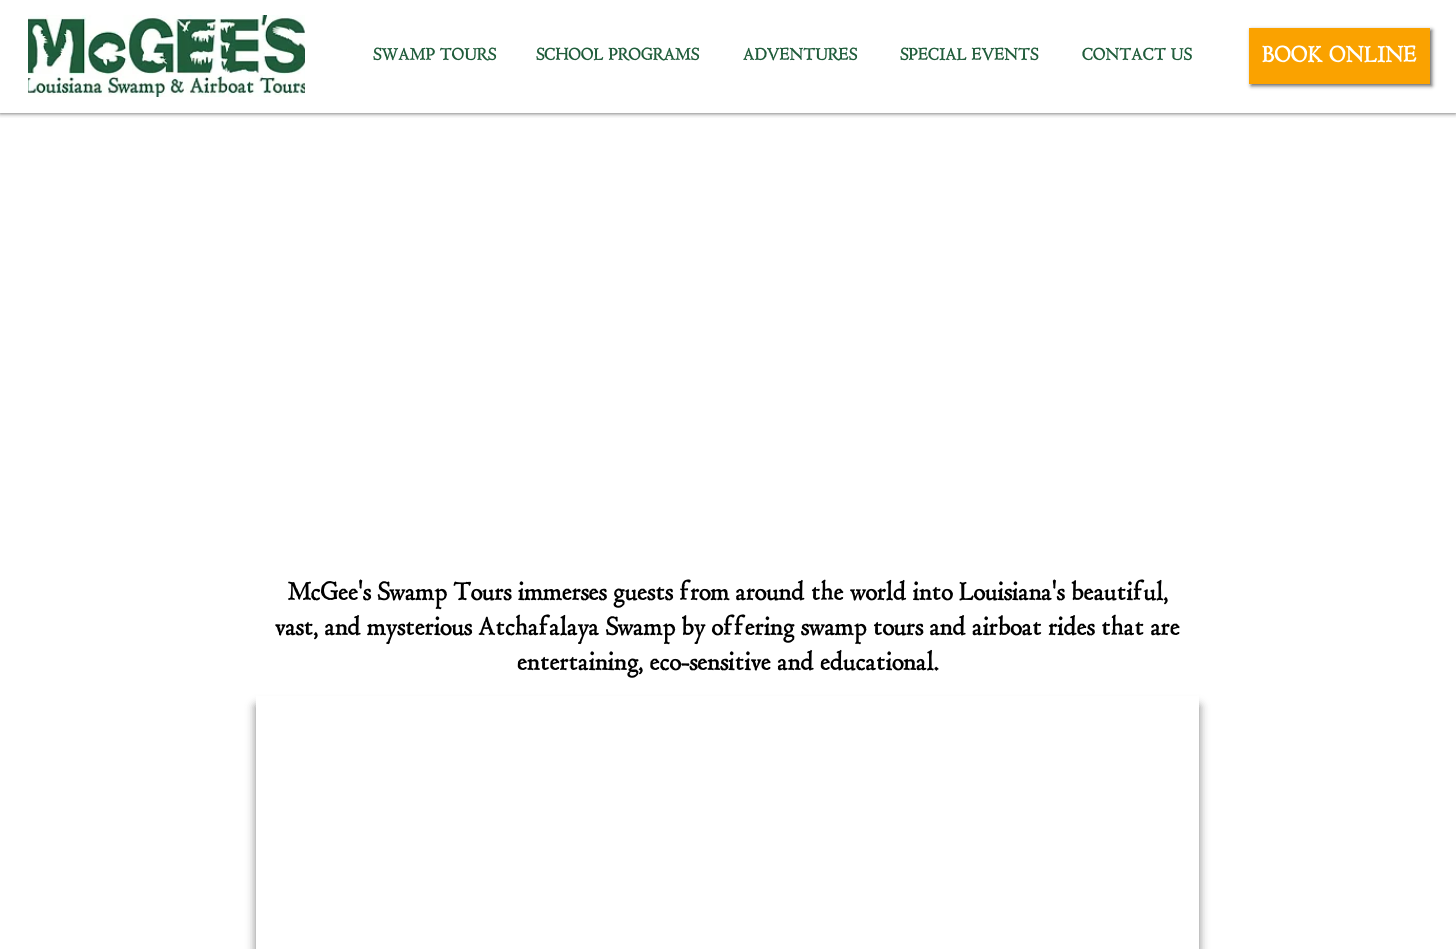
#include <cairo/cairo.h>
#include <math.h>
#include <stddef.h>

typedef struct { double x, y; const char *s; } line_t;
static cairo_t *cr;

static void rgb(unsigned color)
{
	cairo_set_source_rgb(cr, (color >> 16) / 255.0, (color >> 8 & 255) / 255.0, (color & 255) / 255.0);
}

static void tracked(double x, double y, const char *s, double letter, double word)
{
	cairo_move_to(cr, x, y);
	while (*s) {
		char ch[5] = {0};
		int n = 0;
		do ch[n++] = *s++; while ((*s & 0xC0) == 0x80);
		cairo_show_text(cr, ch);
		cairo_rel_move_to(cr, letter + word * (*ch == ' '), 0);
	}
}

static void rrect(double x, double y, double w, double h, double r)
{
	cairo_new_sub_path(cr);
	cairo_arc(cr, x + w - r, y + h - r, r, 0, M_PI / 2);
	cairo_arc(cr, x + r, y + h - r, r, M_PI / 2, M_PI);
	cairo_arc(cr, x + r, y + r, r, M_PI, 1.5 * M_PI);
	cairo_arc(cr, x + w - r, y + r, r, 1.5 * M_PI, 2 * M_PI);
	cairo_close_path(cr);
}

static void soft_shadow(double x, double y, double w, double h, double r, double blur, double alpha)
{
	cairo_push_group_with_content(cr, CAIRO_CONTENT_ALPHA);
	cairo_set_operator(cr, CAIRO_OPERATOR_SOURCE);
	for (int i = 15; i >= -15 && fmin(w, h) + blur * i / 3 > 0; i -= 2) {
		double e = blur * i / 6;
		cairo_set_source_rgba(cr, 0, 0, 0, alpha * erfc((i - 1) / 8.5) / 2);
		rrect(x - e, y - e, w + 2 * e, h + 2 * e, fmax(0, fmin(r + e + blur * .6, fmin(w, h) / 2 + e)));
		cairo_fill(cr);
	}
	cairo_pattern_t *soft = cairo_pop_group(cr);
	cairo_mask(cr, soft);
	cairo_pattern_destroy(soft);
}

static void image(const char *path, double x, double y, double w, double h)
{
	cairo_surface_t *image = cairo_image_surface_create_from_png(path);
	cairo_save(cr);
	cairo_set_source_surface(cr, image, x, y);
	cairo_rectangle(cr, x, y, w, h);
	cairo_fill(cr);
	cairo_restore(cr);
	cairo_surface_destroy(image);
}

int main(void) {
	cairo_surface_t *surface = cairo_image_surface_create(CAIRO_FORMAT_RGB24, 1456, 949);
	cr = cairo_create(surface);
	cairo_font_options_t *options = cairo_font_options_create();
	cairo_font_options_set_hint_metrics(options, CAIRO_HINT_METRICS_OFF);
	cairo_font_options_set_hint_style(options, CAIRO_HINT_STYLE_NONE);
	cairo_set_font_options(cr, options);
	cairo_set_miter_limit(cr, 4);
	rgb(0xffffff);
	cairo_paint(cr);
	cairo_save(cr);
	cairo_rectangle(cr, 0, 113, 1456, 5);
	cairo_clip(cr);
	rgb(0x000000);
	soft_shadow(0, 0, 1456, 113, 0, 2.5, 0.7);
	cairo_restore(cr);
	image("img/1.png", 28, 15, 277, 82);
	rgb(0x000000);
	soft_shadow(1251, 30, 181, 56, 0, 2, 0.6);
	rgb(0xfaa200);
	cairo_rectangle(cr, 1249, 28, 181, 56);
	cairo_fill(cr);
	cairo_save(cr);
	cairo_set_fill_rule(cr, CAIRO_FILL_RULE_EVEN_ODD);
	cairo_new_path(cr);
	cairo_move_to(cr, 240, 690);
	cairo_line_to(cr, 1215, 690);
	cairo_line_to(cr, 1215, 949);
	cairo_line_to(cr, 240, 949);
	cairo_close_path(cr);
	cairo_move_to(cr, 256, 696);
	cairo_line_to(cr, 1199, 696);
	cairo_line_to(cr, 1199, 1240);
	cairo_line_to(cr, 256, 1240);
	cairo_close_path(cr);
	cairo_clip(cr);
	rgb(0x000000);
	soft_shadow(256, 706, 943, 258, 0, 5, 0.5);
	cairo_restore(cr);
	cairo_select_font_face(cr, "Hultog", CAIRO_FONT_SLANT_NORMAL, CAIRO_FONT_WEIGHT_NORMAL);
	cairo_set_font_size(cr, 18);
	rgb(0x1f5c3a);
	{
		static const line_t items[] = {
			{373, 60, "SWAMP TOURS"},
			{536, 60, "SCHOOL PROGRAMS"},
			{743, 60, "ADVENTURES"},
			{900, 60, "SPECIAL EVENTS"},
			{1082, 60, "CONTACT US"},
		};
		for (size_t i = 0; i < sizeof items / sizeof *items; i++) {
			cairo_move_to(cr, items[i].x, items[i].y);
			cairo_show_text(cr, items[i].s);
		}
	}
	cairo_select_font_face(cr, "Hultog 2", CAIRO_FONT_SLANT_NORMAL, CAIRO_FONT_WEIGHT_NORMAL);
	cairo_set_font_size(cr, 24);
	rgb(0xffffff);
	cairo_move_to(cr, 1262, 62);
	cairo_show_text(cr, "BOOK ONLINE");
	cairo_set_font_size(cr, 27);
	rgb(0x000000);
	{
		static const line_t items[] = {
			{288, 600, "McGee's Swamp Tours immerses guests from around the world into Louisiana's beautiful,"},
			{275, 635, "vast, and mysterious Atchafalaya Swamp by offering swamp tours and airboat rides that are"},
			{517, 670, "entertaining, eco-sensitive and educational."},
		};
		for (size_t i = 0; i < sizeof items / sizeof *items; i++) {
			tracked(items[i].x, items[i].y, items[i].s, -0.55, 0);
		}
	}
	cairo_surface_write_to_png(surface, "page.png");
	cairo_font_options_destroy(options);
	cairo_destroy(cr);
	cairo_surface_destroy(surface);
	return 0;
}
